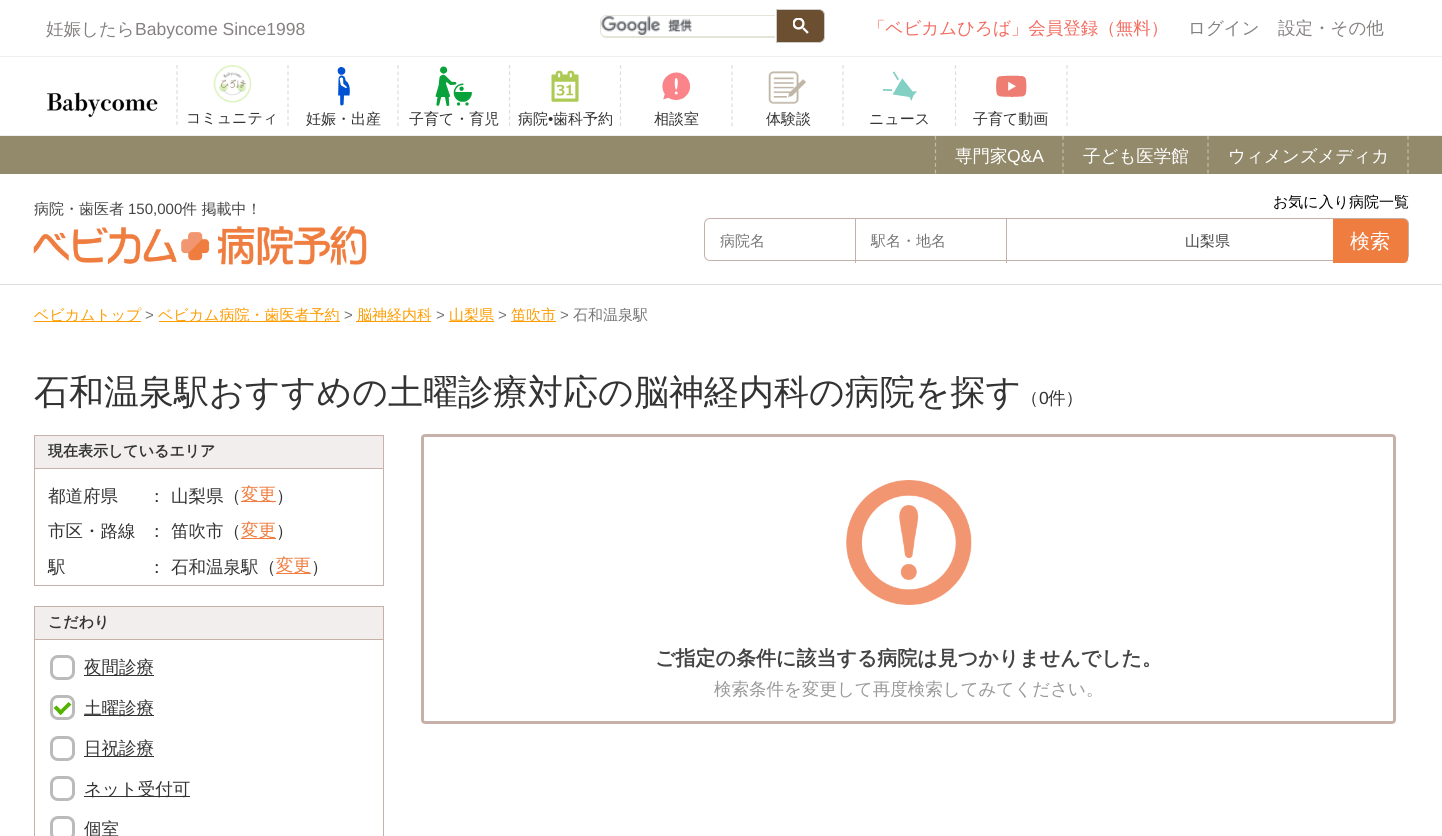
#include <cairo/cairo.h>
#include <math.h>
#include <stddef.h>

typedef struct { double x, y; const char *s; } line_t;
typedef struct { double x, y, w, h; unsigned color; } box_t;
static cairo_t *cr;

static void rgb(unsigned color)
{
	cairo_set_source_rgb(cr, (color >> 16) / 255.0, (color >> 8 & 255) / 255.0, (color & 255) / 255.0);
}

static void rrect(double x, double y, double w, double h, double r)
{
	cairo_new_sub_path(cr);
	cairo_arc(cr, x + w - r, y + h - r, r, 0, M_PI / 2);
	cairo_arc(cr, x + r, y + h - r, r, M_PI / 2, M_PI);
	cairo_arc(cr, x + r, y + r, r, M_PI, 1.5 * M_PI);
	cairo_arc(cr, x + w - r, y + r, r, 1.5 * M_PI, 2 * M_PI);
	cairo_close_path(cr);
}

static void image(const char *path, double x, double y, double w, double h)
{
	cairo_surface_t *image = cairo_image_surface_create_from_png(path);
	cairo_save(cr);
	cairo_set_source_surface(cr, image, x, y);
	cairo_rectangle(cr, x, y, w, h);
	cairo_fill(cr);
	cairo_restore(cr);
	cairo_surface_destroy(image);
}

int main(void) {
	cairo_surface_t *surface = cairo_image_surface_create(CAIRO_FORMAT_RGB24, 1442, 836);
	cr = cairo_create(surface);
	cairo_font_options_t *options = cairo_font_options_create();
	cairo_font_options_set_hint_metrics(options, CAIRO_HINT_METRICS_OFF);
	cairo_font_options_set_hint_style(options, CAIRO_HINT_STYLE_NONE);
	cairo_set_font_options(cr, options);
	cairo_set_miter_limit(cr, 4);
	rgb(0xffffff);
	cairo_paint(cr);
	image("img/1.png", 601, 16, 91, 19);
	rgb(0xe5e4d9);
	cairo_set_fill_rule(cr, CAIRO_FILL_RULE_EVEN_ODD);
	cairo_new_path(cr);
	cairo_move_to(cr, 606, 15);
	cairo_line_to(cr, 775, 15);
	cairo_line_to(cr, 775, 38);
	cairo_line_to(cr, 606, 38);
	cairo_curve_to(cr, 603, 38, 600, 35, 600, 31);
	cairo_line_to(cr, 600, 21);
	cairo_curve_to(cr, 600, 18, 603, 15, 606, 15);
	cairo_close_path(cr);
	cairo_move_to(cr, 606, 16);
	cairo_line_to(cr, 775, 16);
	cairo_line_to(cr, 775, 36);
	cairo_line_to(cr, 606, 36);
	cairo_curve_to(cr, 603, 36, 601, 34, 601, 31);
	cairo_line_to(cr, 601, 21);
	cairo_curve_to(cr, 601, 18, 603, 16, 606, 16);
	cairo_close_path(cr);
	cairo_fill(cr);
	rgb(0x6b4f30);
	cairo_new_path(cr);
	cairo_move_to(cr, 776.5, 9.5);
	cairo_line_to(cr, 819, 9.5);
	cairo_curve_to(cr, 822, 9.5, 824.5, 12, 824.5, 15);
	cairo_line_to(cr, 824.5, 37);
	cairo_curve_to(cr, 824.5, 40, 822, 42.5, 819, 42.5);
	cairo_line_to(cr, 776.5, 42.5);
	cairo_close_path(cr);
	cairo_fill_preserve(cr);
	rgb(0xcccccc);
	cairo_set_line_width(cr, 1);
	cairo_stroke(cr);
	image("img/2.png", 793, 18, 16, 16);
	rgb(0xeeeeee);
	cairo_rectangle(cr, 0, 135, 1442, 1);
	cairo_fill(cr);
	cairo_rectangle(cr, 0, 56, 1442, 1);
	cairo_fill(cr);
	image("img/3.png", 47, 92, 111, 26);
	cairo_new_path(cr);
	cairo_move_to(cr, 177, 65);
	cairo_line_to(cr, 177, 125);
	rgb(0xdddddd);
	cairo_set_line_width(cr, 1.2);
	cairo_set_dash(cr, (double[]){3.75, 2.5}, 2, 0);
	cairo_stroke(cr);
	image("img/4.png", 213, 65, 39, 38);
	cairo_new_path(cr);
	cairo_move_to(cr, 398, 65);
	cairo_line_to(cr, 398, 126);
	cairo_set_dash(cr, (double[]){3.75, 2.64}, 2, 0);
	cairo_stroke(cr);
	cairo_new_path(cr);
	cairo_move_to(cr, 288, 65);
	cairo_line_to(cr, 288, 126);
	cairo_stroke(cr);
	image("img/5.png", 337, 67, 13, 39);
	cairo_new_path(cr);
	cairo_move_to(cr, 509.5, 65);
	cairo_line_to(cr, 509.5, 126);
	cairo_stroke(cr);
	image("img/6.png", 435, 66, 37, 40);
	cairo_new_path(cr);
	cairo_move_to(cr, 620.5, 65);
	cairo_line_to(cr, 620.5, 126);
	cairo_stroke(cr);
	image("img/7.png", 551, 70, 28, 32);
	cairo_new_path(cr);
	cairo_move_to(cr, 732, 65);
	cairo_line_to(cr, 732, 126);
	cairo_stroke(cr);
	image("img/8.png", 662, 72, 29, 28);
	cairo_new_path(cr);
	cairo_move_to(cr, 843, 65);
	cairo_line_to(cr, 843, 126);
	cairo_stroke(cr);
	image("img/9.png", 768, 71, 39, 33);
	cairo_new_path(cr);
	cairo_move_to(cr, 955.5, 65);
	cairo_line_to(cr, 955.5, 126);
	cairo_stroke(cr);
	image("img/10.png", 882, 71, 35, 30);
	cairo_new_path(cr);
	cairo_move_to(cr, 1067, 65);
	cairo_line_to(cr, 1067, 126);
	cairo_stroke(cr);
	image("img/11.png", 996, 75, 31, 22);
	rgb(0x928a6b);
	cairo_rectangle(cr, 0, 136, 1442, 38);
	cairo_fill(cr);
	cairo_new_path(cr);
	cairo_move_to(cr, 1063, 136);
	cairo_line_to(cr, 1063, 174);
	rgb(0xc3bda4);
	cairo_set_dash(cr, (double[]){3.75, 3}, 2, 0);
	cairo_stroke(cr);
	cairo_new_path(cr);
	cairo_move_to(cr, 935.5, 136);
	cairo_line_to(cr, 935.5, 174);
	cairo_stroke(cr);
	cairo_new_path(cr);
	cairo_move_to(cr, 1208, 136);
	cairo_line_to(cr, 1208, 174);
	cairo_stroke(cr);
	cairo_new_path(cr);
	cairo_move_to(cr, 1408, 136);
	cairo_line_to(cr, 1408, 174);
	cairo_stroke(cr);
	rgb(0xdddddd);
	cairo_rectangle(cr, 0, 284, 1442, 1);
	cairo_fill(cr);
	image("img/12.png", 33, 226, 334, 39);
	rrect(704.5, 218.5, 704, 42, 5.5);
	rgb(0xc3b1a9);
	cairo_set_line_width(cr, 1);
	cairo_set_dash(cr, NULL, 0, 0);
	cairo_stroke(cr);
	cairo_rectangle(cr, 855, 219, 1, 44);
	cairo_fill(cr);
	cairo_rectangle(cr, 1006, 219, 1, 44);
	cairo_fill(cr);
	rgb(0xef7d3f);
	cairo_new_path(cr);
	cairo_move_to(cr, 1333, 219);
	cairo_line_to(cr, 1404, 219);
	cairo_curve_to(cr, 1406, 219, 1408, 221, 1408, 223);
	cairo_line_to(cr, 1408, 259);
	cairo_curve_to(cr, 1408, 261, 1406, 263, 1404, 263);
	cairo_line_to(cr, 1333, 263);
	cairo_close_path(cr);
	cairo_fill(cr);
	{
		static const box_t items[] = {
			{34, 321, 107, 1, 0xff9c00},
			{159, 321, 181, 1, 0xff9c00},
			{356, 321, 75, 1, 0xff9c00},
			{449, 321, 45, 1, 0xff9c00},
			{511, 321, 45, 1, 0xff9c00},
		};
		for (size_t i = 0; i < sizeof items / sizeof *items; i++) {
			rgb(items[i].color);
			cairo_rectangle(cr, items[i].x, items[i].y, items[i].w, items[i].h);
			cairo_fill(cr);
		}
	}
	cairo_rectangle(cr, 34.5, 468.5, 349, 117);
	rgb(0xc5b1a9);
	cairo_stroke(cr);
	rgb(0xf1eeed);
	cairo_rectangle(cr, 34.5, 435.5, 349, 33);
	cairo_fill_preserve(cr);
	rgb(0xc7b1a9);
	cairo_stroke(cr);
	{
		static const box_t items[] = {
			{241, 501, 35, 1, 0xef7d3f},
			{241, 538, 35, 1, 0xef7d3f},
			{276, 573, 35, 1, 0xef7d3f},
		};
		for (size_t i = 0; i < sizeof items / sizeof *items; i++) {
			rgb(items[i].color);
			cairo_rectangle(cr, items[i].x, items[i].y, items[i].w, items[i].h);
			cairo_fill(cr);
		}
	}
	cairo_rectangle(cr, 34.5, 639.5, 349, 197);
	rgb(0xc5b1a9);
	cairo_stroke(cr);
	rgb(0xf1eeed);
	cairo_rectangle(cr, 34.5, 606.5, 349, 33);
	cairo_fill_preserve(cr);
	rgb(0xc6b1a9);
	cairo_stroke(cr);
	rrect(51.5, 656.5, 22, 22, 6.5);
	rgb(0xbbbbbb);
	cairo_set_line_width(cr, 3);
	cairo_stroke(cr);
	rgb(0x333333);
	cairo_rectangle(cr, 84, 675, 70, 1);
	cairo_fill(cr);
	rgb(0x53b300);
	cairo_set_fill_rule(cr, CAIRO_FILL_RULE_WINDING);
	cairo_new_path(cr);
	cairo_move_to(cr, 68.5, 702);
	cairo_line_to(cr, 71.5, 704.5);
	cairo_line_to(cr, 60.5, 715);
	cairo_line_to(cr, 58, 712.5);
	cairo_close_path(cr);
	cairo_fill(cr);
	cairo_new_path(cr);
	cairo_move_to(cr, 56.5, 705.5);
	cairo_line_to(cr, 63.5, 712.5);
	cairo_line_to(cr, 60.5, 715);
	cairo_line_to(cr, 53.5, 708);
	cairo_close_path(cr);
	cairo_fill(cr);
	rrect(51.5, 696.5, 22, 22, 6.5);
	rgb(0xbbbbbb);
	cairo_stroke(cr);
	rgb(0x333333);
	cairo_rectangle(cr, 84, 715, 70, 1);
	cairo_fill(cr);
	rrect(51.5, 737.5, 22, 22, 6.5);
	rgb(0xbbbbbb);
	cairo_stroke(cr);
	rgb(0x333333);
	cairo_rectangle(cr, 84, 756, 70, 1);
	cairo_fill(cr);
	rrect(51.5, 777.5, 22, 22, 6.5);
	rgb(0xbbbbbb);
	cairo_stroke(cr);
	rgb(0x333333);
	cairo_rectangle(cr, 84, 796, 106, 1);
	cairo_fill(cr);
	rrect(51.5, 817.5, 22, 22, 6.5);
	rgb(0xbbbbbb);
	cairo_stroke(cr);
	rrect(422.5, 435.5, 972, 287, 2.5);
	rgb(0xc5b1a9);
	cairo_stroke(cr);
	image("img/13.png", 846, 480, 126, 125);
	cairo_select_font_face(cr, "WenQuanYi Zen Hei Medium", CAIRO_FONT_SLANT_NORMAL, CAIRO_FONT_WEIGHT_NORMAL);
	cairo_set_font_size(cr, 17.5);
	rgb(0x868181);
	cairo_move_to(cr, 46, 35);
	cairo_show_text(cr, "妊娠したら");
	cairo_select_font_face(cr, "Liberation Sans", CAIRO_FONT_SLANT_NORMAL, CAIRO_FONT_WEIGHT_NORMAL);
	cairo_move_to(cr, 135, 35);
	cairo_show_text(cr, "Babycome Since1998");
	cairo_select_font_face(cr, "WenQuanYi Zen Hei Medium", CAIRO_FONT_SLANT_NORMAL, CAIRO_FONT_WEIGHT_NORMAL);
	rgb(0xf36c60);
	cairo_move_to(cr, 868, 34);
	cairo_show_text(cr, "「ベビカムひろば」会員登録（無料）");
	rgb(0x868181);
	cairo_move_to(cr, 1188, 34);
	cairo_show_text(cr, "ログイン");
	cairo_move_to(cr, 1278, 34);
	cairo_show_text(cr, "設定・その他");
	cairo_set_font_size(cr, 15);
	rgb(0x333333);
	{
		static const line_t items[] = {
			{186, 123, "コミュニティ"},
			{306, 124, "妊娠・出産"},
			{409, 124, "子育て・育児"},
			{518, 124, "病院"},
		};
		for (size_t i = 0; i < sizeof items / sizeof *items; i++) {
			cairo_move_to(cr, items[i].x, items[i].y);
			cairo_show_text(cr, items[i].s);
		}
	}
	cairo_select_font_face(cr, "Liberation Sans", CAIRO_FONT_SLANT_NORMAL, CAIRO_FONT_WEIGHT_NORMAL);
	cairo_move_to(cr, 548, 124);
	cairo_show_text(cr, "•");
	cairo_select_font_face(cr, "WenQuanYi Zen Hei Medium", CAIRO_FONT_SLANT_NORMAL, CAIRO_FONT_WEIGHT_NORMAL);
	{
		static const line_t items[] = {
			{553, 124, "歯科予約"},
			{654, 124, "相談室"},
			{766, 124, "体験談"},
			{869, 124, "ニュース"},
			{973, 124, "子育て動画"},
		};
		for (size_t i = 0; i < sizeof items / sizeof *items; i++) {
			cairo_move_to(cr, items[i].x, items[i].y);
			cairo_show_text(cr, items[i].s);
		}
	}
	cairo_set_font_size(cr, 17.5);
	rgb(0xffffff);
	cairo_move_to(cr, 955, 162);
	cairo_show_text(cr, "専門家");
	cairo_select_font_face(cr, "Liberation Sans", CAIRO_FONT_SLANT_NORMAL, CAIRO_FONT_WEIGHT_NORMAL);
	cairo_move_to(cr, 1007, 162);
	cairo_show_text(cr, "Q&A");
	cairo_select_font_face(cr, "WenQuanYi Zen Hei Medium", CAIRO_FONT_SLANT_NORMAL, CAIRO_FONT_WEIGHT_NORMAL);
	cairo_move_to(cr, 1083, 162);
	cairo_show_text(cr, "子ども医学館");
	cairo_move_to(cr, 1228, 162);
	cairo_show_text(cr, "ウィメンズメディカ");
	cairo_set_font_size(cr, 15);
	rgb(0x000000);
	cairo_move_to(cr, 1273, 207);
	cairo_show_text(cr, "お気に入り病院一覧");
	rgb(0x444444);
	cairo_move_to(cr, 34, 214);
	cairo_show_text(cr, "病院・歯医者");
	cairo_select_font_face(cr, "Liberation Sans", CAIRO_FONT_SLANT_NORMAL, CAIRO_FONT_WEIGHT_NORMAL);
	cairo_move_to(cr, 128, 214);
	cairo_show_text(cr, "150,000");
	cairo_select_font_face(cr, "WenQuanYi Zen Hei Medium", CAIRO_FONT_SLANT_NORMAL, CAIRO_FONT_WEIGHT_NORMAL);
	cairo_move_to(cr, 182, 214);
	cairo_show_text(cr, "件 掲載中！");
	rgb(0x757575);
	cairo_move_to(cr, 720, 246);
	cairo_show_text(cr, "病院名");
	cairo_move_to(cr, 871, 246);
	cairo_show_text(cr, "駅名・地名");
	cairo_save(cr);
	cairo_rectangle(cr, 1185, 234, 131, 15);
	cairo_clip(cr);
	rgb(0x444444);
	cairo_move_to(cr, 1185, 246);
	cairo_show_text(cr, "山梨県");
	cairo_restore(cr);
	cairo_set_font_size(cr, 20);
	rgb(0xffffff);
	cairo_move_to(cr, 1350, 248);
	cairo_show_text(cr, "検索");
	cairo_set_font_size(cr, 15);
	rgb(0xff9c00);
	cairo_move_to(cr, 34, 320);
	cairo_show_text(cr, "ベビカムトップ");
	cairo_select_font_face(cr, "Liberation Sans", CAIRO_FONT_SLANT_NORMAL, CAIRO_FONT_WEIGHT_NORMAL);
	rgb(0x757575);
	cairo_move_to(cr, 145, 320);
	cairo_show_text(cr, ">");
	cairo_select_font_face(cr, "WenQuanYi Zen Hei Medium", CAIRO_FONT_SLANT_NORMAL, CAIRO_FONT_WEIGHT_NORMAL);
	rgb(0xff9c00);
	cairo_move_to(cr, 158, 320);
	cairo_show_text(cr, "ベビカム病院・歯医者予約");
	cairo_select_font_face(cr, "Liberation Sans", CAIRO_FONT_SLANT_NORMAL, CAIRO_FONT_WEIGHT_NORMAL);
	rgb(0x757575);
	cairo_move_to(cr, 344, 320);
	cairo_show_text(cr, ">");
	cairo_select_font_face(cr, "WenQuanYi Zen Hei Medium", CAIRO_FONT_SLANT_NORMAL, CAIRO_FONT_WEIGHT_NORMAL);
	rgb(0xff9c00);
	cairo_move_to(cr, 357, 320);
	cairo_show_text(cr, "脳神経内科");
	cairo_select_font_face(cr, "Liberation Sans", CAIRO_FONT_SLANT_NORMAL, CAIRO_FONT_WEIGHT_NORMAL);
	rgb(0x757575);
	cairo_move_to(cr, 436, 320);
	cairo_show_text(cr, ">");
	cairo_select_font_face(cr, "WenQuanYi Zen Hei Medium", CAIRO_FONT_SLANT_NORMAL, CAIRO_FONT_WEIGHT_NORMAL);
	rgb(0xff9c00);
	cairo_move_to(cr, 449, 320);
	cairo_show_text(cr, "山梨県");
	cairo_select_font_face(cr, "Liberation Sans", CAIRO_FONT_SLANT_NORMAL, CAIRO_FONT_WEIGHT_NORMAL);
	rgb(0x757575);
	cairo_move_to(cr, 498, 320);
	cairo_show_text(cr, ">");
	cairo_select_font_face(cr, "WenQuanYi Zen Hei Medium", CAIRO_FONT_SLANT_NORMAL, CAIRO_FONT_WEIGHT_NORMAL);
	rgb(0xff9c00);
	cairo_move_to(cr, 511, 320);
	cairo_show_text(cr, "笛吹市");
	cairo_select_font_face(cr, "Liberation Sans", CAIRO_FONT_SLANT_NORMAL, CAIRO_FONT_WEIGHT_NORMAL);
	rgb(0x757575);
	cairo_move_to(cr, 560, 320);
	cairo_show_text(cr, ">");
	cairo_select_font_face(cr, "WenQuanYi Zen Hei Medium", CAIRO_FONT_SLANT_NORMAL, CAIRO_FONT_WEIGHT_NORMAL);
	cairo_move_to(cr, 573, 320);
	cairo_show_text(cr, "石和温泉駅");
	cairo_set_font_size(cr, 35);
	rgb(0x333333);
	cairo_move_to(cr, 34, 404);
	cairo_show_text(cr, "石和温泉駅おすすめの土曜診療対応の脳神経内科の病院を探す");
	cairo_set_font_size(cr, 17.5);
	cairo_move_to(cr, 1021, 404);
	cairo_show_text(cr, "（");
	cairo_select_font_face(cr, "Liberation Sans", CAIRO_FONT_SLANT_NORMAL, CAIRO_FONT_WEIGHT_NORMAL);
	cairo_move_to(cr, 1039, 404);
	cairo_show_text(cr, "0");
	cairo_select_font_face(cr, "WenQuanYi Zen Hei Medium", CAIRO_FONT_SLANT_NORMAL, CAIRO_FONT_WEIGHT_NORMAL);
	cairo_move_to(cr, 1048, 404);
	cairo_show_text(cr, "件）");
	cairo_select_font_face(cr, "WenQuanYi Zen Hei", CAIRO_FONT_SLANT_NORMAL, CAIRO_FONT_WEIGHT_BOLD);
	cairo_set_font_size(cr, 15);
	cairo_move_to(cr, 48, 456);
	cairo_show_text(cr, "現在表示しているエリア");
	cairo_select_font_face(cr, "WenQuanYi Zen Hei Medium", CAIRO_FONT_SLANT_NORMAL, CAIRO_FONT_WEIGHT_NORMAL);
	cairo_set_font_size(cr, 17.5);
	{
		static const line_t items[] = {
			{48, 502, "都道府県"},
			{148, 502, "："},
			{171, 502, "山梨県（"},
		};
		for (size_t i = 0; i < sizeof items / sizeof *items; i++) {
			cairo_move_to(cr, items[i].x, items[i].y);
			cairo_show_text(cr, items[i].s);
		}
	}
	rgb(0xef7d3f);
	cairo_move_to(cr, 241, 500);
	cairo_show_text(cr, "変更");
	rgb(0x333333);
	{
		static const line_t items[] = {
			{276, 502, "）"},
			{48, 537, "市区・路線"},
			{148, 537, "："},
			{171, 537, "笛吹市（"},
		};
		for (size_t i = 0; i < sizeof items / sizeof *items; i++) {
			cairo_move_to(cr, items[i].x, items[i].y);
			cairo_show_text(cr, items[i].s);
		}
	}
	rgb(0xef7d3f);
	cairo_move_to(cr, 241, 536);
	cairo_show_text(cr, "変更");
	rgb(0x333333);
	{
		static const line_t items[] = {
			{276, 537, "）"},
			{48, 573, "駅"},
			{148, 573, "："},
			{171, 573, "石和温泉駅（"},
		};
		for (size_t i = 0; i < sizeof items / sizeof *items; i++) {
			cairo_move_to(cr, items[i].x, items[i].y);
			cairo_show_text(cr, items[i].s);
		}
	}
	rgb(0xef7d3f);
	cairo_move_to(cr, 276, 571);
	cairo_show_text(cr, "変更");
	rgb(0x333333);
	cairo_move_to(cr, 311, 573);
	cairo_show_text(cr, "）");
	cairo_select_font_face(cr, "WenQuanYi Zen Hei", CAIRO_FONT_SLANT_NORMAL, CAIRO_FONT_WEIGHT_BOLD);
	cairo_set_font_size(cr, 15);
	cairo_move_to(cr, 48, 627);
	cairo_show_text(cr, "こだわり");
	cairo_select_font_face(cr, "WenQuanYi Zen Hei Medium", CAIRO_FONT_SLANT_NORMAL, CAIRO_FONT_WEIGHT_NORMAL);
	cairo_set_font_size(cr, 17.5);
	{
		static const line_t items[] = {
			{84, 673, "夜間診療"},
			{84, 714, "土曜診療"},
			{84, 754, "日祝診療"},
			{84, 795, "ネット受付可"},
			{84, 835, "個室"},
		};
		for (size_t i = 0; i < sizeof items / sizeof *items; i++) {
			cairo_move_to(cr, items[i].x, items[i].y);
			cairo_show_text(cr, items[i].s);
		}
	}
	cairo_select_font_face(cr, "WenQuanYi Zen Hei", CAIRO_FONT_SLANT_NORMAL, CAIRO_FONT_WEIGHT_BOLD);
	cairo_set_font_size(cr, 20);
	rgb(0x444444);
	cairo_move_to(cr, 655, 665);
	cairo_show_text(cr, "ご指定の条件に該当する病院は見つかりませんでした。");
	cairo_select_font_face(cr, "WenQuanYi Zen Hei Medium", CAIRO_FONT_SLANT_NORMAL, CAIRO_FONT_WEIGHT_NORMAL);
	cairo_set_font_size(cr, 17.5);
	rgb(0x999999);
	cairo_move_to(cr, 714, 695);
	cairo_show_text(cr, "検索条件を変更して再度検索してみてください。");
	cairo_surface_write_to_png(surface, "page.png");
	cairo_font_options_destroy(options);
	cairo_destroy(cr);
	cairo_surface_destroy(surface);
	return 0;
}
